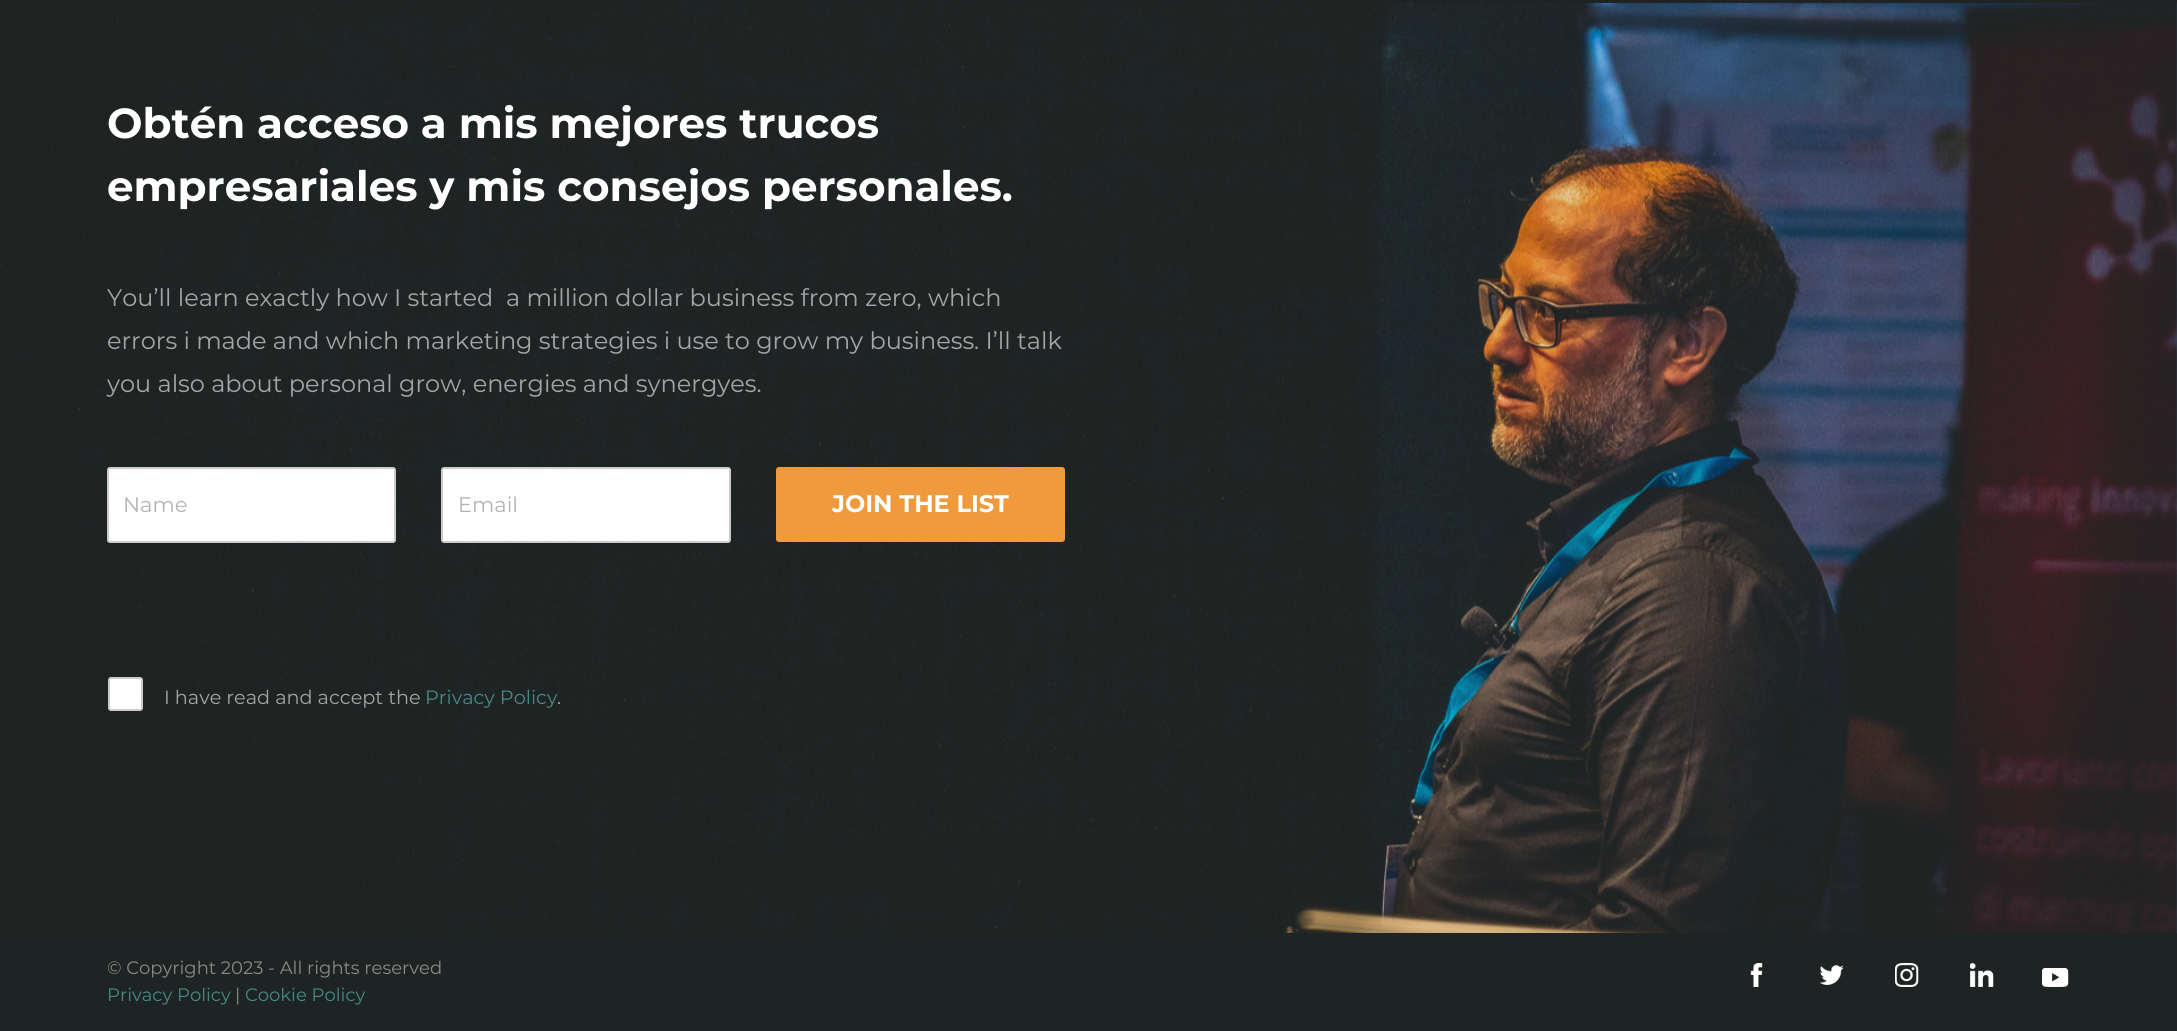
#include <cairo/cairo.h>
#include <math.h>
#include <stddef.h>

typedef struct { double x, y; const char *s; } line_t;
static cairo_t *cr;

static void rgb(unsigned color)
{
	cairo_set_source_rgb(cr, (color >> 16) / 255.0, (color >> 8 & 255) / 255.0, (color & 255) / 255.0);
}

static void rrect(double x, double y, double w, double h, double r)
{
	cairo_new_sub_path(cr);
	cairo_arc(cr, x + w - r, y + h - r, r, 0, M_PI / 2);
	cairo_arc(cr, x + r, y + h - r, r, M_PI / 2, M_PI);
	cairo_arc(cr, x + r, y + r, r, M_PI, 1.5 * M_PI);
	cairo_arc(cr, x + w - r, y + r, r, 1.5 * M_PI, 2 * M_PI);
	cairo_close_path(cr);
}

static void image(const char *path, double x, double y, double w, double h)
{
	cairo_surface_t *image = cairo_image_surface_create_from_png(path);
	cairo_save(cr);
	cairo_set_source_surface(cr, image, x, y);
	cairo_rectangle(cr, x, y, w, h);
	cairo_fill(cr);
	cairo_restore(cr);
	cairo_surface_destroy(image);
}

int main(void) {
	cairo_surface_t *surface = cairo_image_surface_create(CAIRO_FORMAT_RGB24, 2177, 1031);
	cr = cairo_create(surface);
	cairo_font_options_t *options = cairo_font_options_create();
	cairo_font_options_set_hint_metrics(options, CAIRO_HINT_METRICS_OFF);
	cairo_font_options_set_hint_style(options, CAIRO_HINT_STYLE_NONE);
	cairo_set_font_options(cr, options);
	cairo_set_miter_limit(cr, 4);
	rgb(0x1e2423);
	cairo_paint(cr);
	image("img/1.png", 0, 3, 2177, 930);
	rgb(0xffffff);
	rrect(108, 468, 287, 74, 2);
	cairo_fill_preserve(cr);
	rgb(0xcccccc);
	cairo_stroke(cr);
	rgb(0xffffff);
	rrect(442, 468, 288, 74, 2);
	cairo_fill_preserve(cr);
	rgb(0xcccccc);
	cairo_stroke(cr);
	rgb(0xf09a3e);
	rrect(777, 468, 287, 73, 2);
	cairo_fill_preserve(cr);
	cairo_stroke(cr);
	rgb(0xffffff);
	rrect(109, 678, 33, 32, 2);
	cairo_fill_preserve(cr);
	rgb(0xcccccc);
	cairo_stroke(cr);
	image("img/2.png", 1750, 963, 13, 24);
	image("img/3.png", 1820, 965, 24, 20);
	image("img/4.png", 1895, 963, 24, 24);
	image("img/5.png", 1970, 963, 24, 24);
	image("img/6.png", 2042, 968, 27, 19);
	cairo_select_font_face(cr, "Montserrat", CAIRO_FONT_SLANT_NORMAL, CAIRO_FONT_WEIGHT_BOLD);
	cairo_set_font_size(cr, 42);
	rgb(0xffffff);
	cairo_move_to(cr, 107, 138);
	cairo_show_text(cr, "Obtén acceso a mis mejores trucos");
	cairo_move_to(cr, 107, 201);
	cairo_show_text(cr, "empresariales y mis consejos personales.");
	cairo_select_font_face(cr, "Montserrat", CAIRO_FONT_SLANT_NORMAL, CAIRO_FONT_WEIGHT_NORMAL);
	cairo_set_font_size(cr, 24);
	rgb(0xa4a5a6);
	{
		static const line_t items[] = {
			{107, 306, "You’ll learn exactly how I started  a million dollar business from zero, which"},
			{107, 349, "errors i made and which marketing strategies i use to grow my business. I’ll talk"},
			{107, 392, "you also about personal grow, energies and synergyes."},
		};
		for (size_t i = 0; i < sizeof items / sizeof *items; i++) {
			cairo_move_to(cr, items[i].x, items[i].y);
			cairo_show_text(cr, items[i].s);
		}
	}
	cairo_set_font_size(cr, 21);
	rgb(0xb3b3b3);
	cairo_move_to(cr, 123, 512);
	cairo_show_text(cr, "Name");
	cairo_move_to(cr, 458, 512);
	cairo_show_text(cr, "Email");
	cairo_select_font_face(cr, "Montserrat", CAIRO_FONT_SLANT_NORMAL, CAIRO_FONT_WEIGHT_BOLD);
	cairo_set_font_size(cr, 24);
	rgb(0xffffff);
	cairo_move_to(cr, 832, 512);
	cairo_show_text(cr, "JOIN THE LIST");
	cairo_select_font_face(cr, "Montserrat", CAIRO_FONT_SLANT_NORMAL, CAIRO_FONT_WEIGHT_NORMAL);
	cairo_set_font_size(cr, 19.25);
	rgb(0xa4a5a6);
	cairo_move_to(cr, 164, 704);
	cairo_show_text(cr, "I have read and accept the");
	rgb(0x448a85);
	cairo_move_to(cr, 425, 704);
	cairo_show_text(cr, "Privacy Policy");
	rgb(0xa4a5a6);
	cairo_move_to(cr, 557, 704);
	cairo_show_text(cr, ".");
	cairo_set_font_size(cr, 18);
	rgb(0x898989);
	cairo_move_to(cr, 107, 974);
	cairo_show_text(cr, "© Copyright 2023 - All rights reserved");
	rgb(0x448a85);
	cairo_move_to(cr, 107, 1001);
	cairo_show_text(cr, "Privacy Policy");
	rgb(0x898989);
	cairo_move_to(cr, 235, 1001);
	cairo_show_text(cr, "|");
	rgb(0x448a85);
	cairo_move_to(cr, 245, 1001);
	cairo_show_text(cr, "Cookie Policy");
	cairo_surface_write_to_png(surface, "page.png");
	cairo_font_options_destroy(options);
	cairo_destroy(cr);
	cairo_surface_destroy(surface);
	return 0;
}
